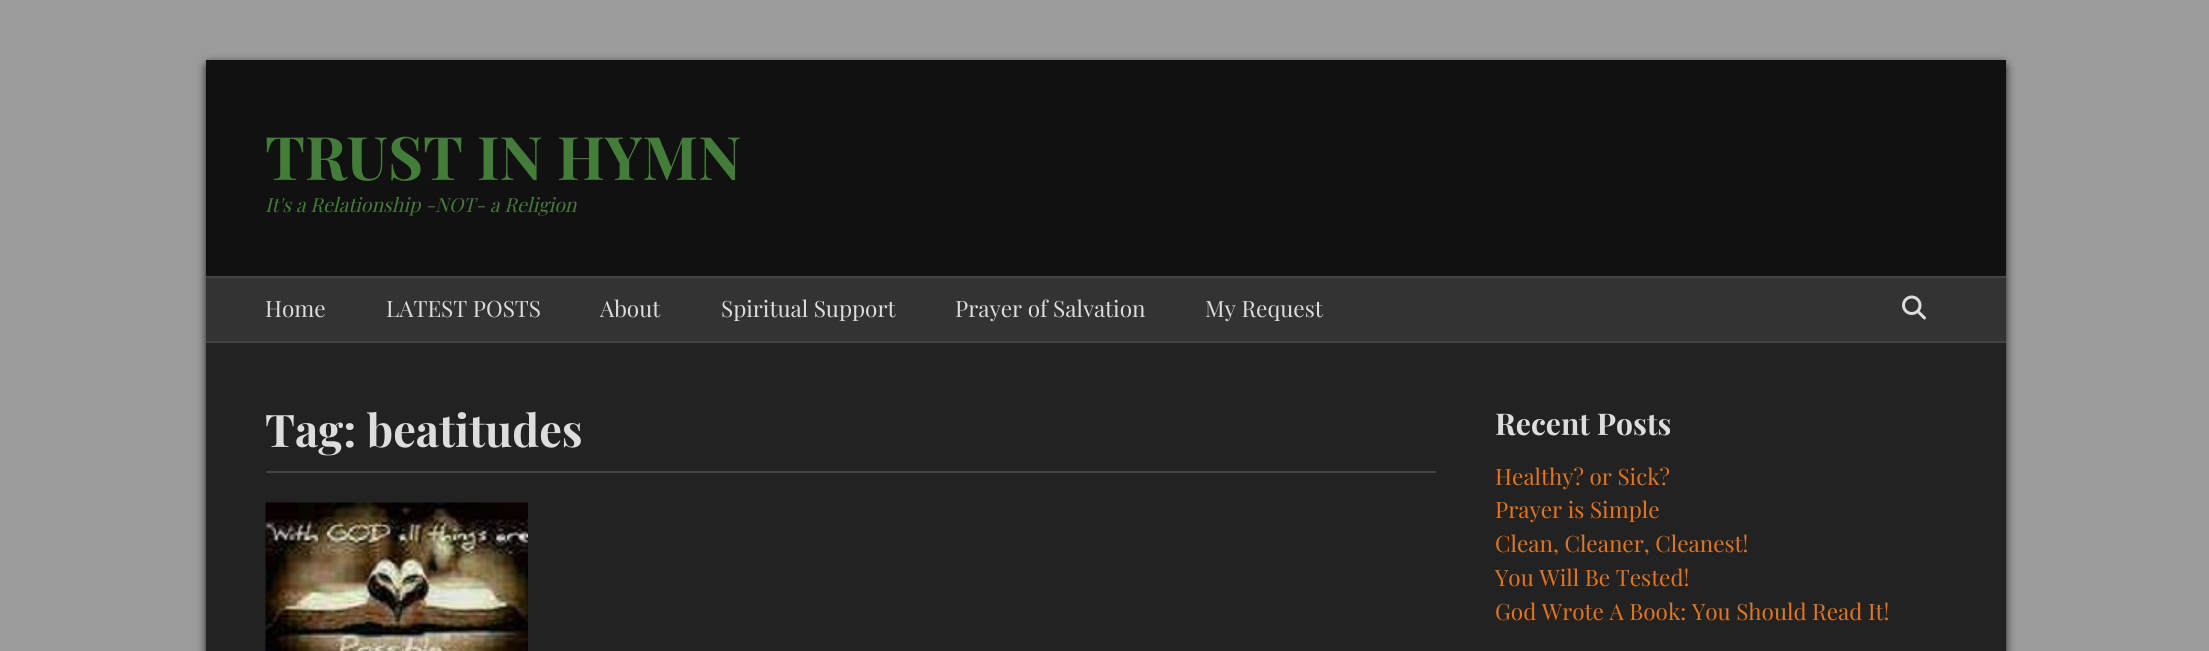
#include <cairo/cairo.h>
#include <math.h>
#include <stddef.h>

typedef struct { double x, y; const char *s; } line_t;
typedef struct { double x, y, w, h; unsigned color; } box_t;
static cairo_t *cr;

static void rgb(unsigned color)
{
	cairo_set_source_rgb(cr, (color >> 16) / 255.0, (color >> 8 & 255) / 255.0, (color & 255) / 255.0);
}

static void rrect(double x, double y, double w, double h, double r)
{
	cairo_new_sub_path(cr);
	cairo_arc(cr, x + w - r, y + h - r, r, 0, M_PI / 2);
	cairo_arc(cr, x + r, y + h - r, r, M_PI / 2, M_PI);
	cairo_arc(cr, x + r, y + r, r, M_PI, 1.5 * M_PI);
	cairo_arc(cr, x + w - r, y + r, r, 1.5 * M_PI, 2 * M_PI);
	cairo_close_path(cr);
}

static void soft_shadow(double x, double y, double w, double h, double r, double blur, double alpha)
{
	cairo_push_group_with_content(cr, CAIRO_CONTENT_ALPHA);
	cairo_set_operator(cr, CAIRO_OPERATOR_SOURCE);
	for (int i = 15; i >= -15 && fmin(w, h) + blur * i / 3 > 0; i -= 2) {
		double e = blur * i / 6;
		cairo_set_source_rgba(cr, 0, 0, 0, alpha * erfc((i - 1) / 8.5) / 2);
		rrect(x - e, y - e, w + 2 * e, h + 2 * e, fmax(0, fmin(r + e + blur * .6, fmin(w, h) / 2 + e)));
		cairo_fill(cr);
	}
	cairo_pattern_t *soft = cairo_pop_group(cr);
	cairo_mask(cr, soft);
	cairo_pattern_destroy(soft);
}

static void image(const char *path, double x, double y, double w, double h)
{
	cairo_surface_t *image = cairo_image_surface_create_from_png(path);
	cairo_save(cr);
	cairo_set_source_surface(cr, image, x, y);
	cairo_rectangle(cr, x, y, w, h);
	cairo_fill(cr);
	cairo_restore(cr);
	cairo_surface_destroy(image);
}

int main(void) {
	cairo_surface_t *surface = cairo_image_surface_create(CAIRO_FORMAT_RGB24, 2209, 651);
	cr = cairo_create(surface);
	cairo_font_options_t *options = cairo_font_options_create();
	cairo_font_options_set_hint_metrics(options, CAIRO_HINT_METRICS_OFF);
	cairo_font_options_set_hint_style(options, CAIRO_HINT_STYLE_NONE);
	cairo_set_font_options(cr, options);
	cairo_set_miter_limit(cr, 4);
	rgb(0x9b9b9b);
	cairo_paint(cr);
	rgb(0x000000);
	soft_shadow(206, 63, 1800, 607, 5, 4.5, 0.8);
	{
		static const box_t items[] = {
			{206, 343, 1800, 308, 0x222222},
			{206, 60, 1800, 216, 0x111111},
			{206, 278, 1800, 63, 0x333333},
			{206, 276, 1800, 2, 0x444444},
			{206, 341, 1800, 2, 0x444444},
		};
		for (size_t i = 0; i < sizeof items / sizeof *items; i++) {
			rgb(items[i].color);
			cairo_rectangle(cr, items[i].x, items[i].y, items[i].w, items[i].h);
			cairo_fill(cr);
		}
	}
	image("img/1.png", 1902, 295, 24, 25);
	cairo_rectangle(cr, 266, 471, 1170, 2);
	cairo_fill(cr);
	image("img/2.png", 265, 502, 263, 149);
	cairo_select_font_face(cr, "Playfair Display", CAIRO_FONT_SLANT_NORMAL, CAIRO_FONT_WEIGHT_BOLD);
	cairo_set_font_size(cr, 60);
	rgb(0x447c39);
	cairo_move_to(cr, 265, 180);
	cairo_show_text(cr, "TRUST IN HYMN");
	cairo_select_font_face(cr, "Playfair Display", CAIRO_FONT_SLANT_ITALIC, CAIRO_FONT_WEIGHT_NORMAL);
	cairo_set_font_size(cr, 19.5);
	cairo_move_to(cr, 265, 212);
	cairo_show_text(cr, "It's a Relationship -NOT- a Religion");
	cairo_select_font_face(cr, "Playfair Display", CAIRO_FONT_SLANT_NORMAL, CAIRO_FONT_WEIGHT_NORMAL);
	cairo_set_font_size(cr, 22.5);
	rgb(0xdddddd);
	{
		static const line_t items[] = {
			{265, 317, "Home"},
			{386, 317, "LATEST POSTS"},
			{600, 317, "About"},
			{721, 317, "Spiritual Support"},
			{955, 317, "Prayer of Salvation"},
			{1205, 317, "My Request"},
		};
		for (size_t i = 0; i < sizeof items / sizeof *items; i++) {
			cairo_move_to(cr, items[i].x, items[i].y);
			cairo_show_text(cr, items[i].s);
		}
	}
	cairo_select_font_face(cr, "Playfair Display", CAIRO_FONT_SLANT_NORMAL, CAIRO_FONT_WEIGHT_BOLD);
	cairo_set_font_size(cr, 45);
	cairo_move_to(cr, 265, 447);
	cairo_show_text(cr, "Tag: beatitudes");
	cairo_set_font_size(cr, 30);
	cairo_move_to(cr, 1495, 435);
	cairo_show_text(cr, "Recent Posts");
	cairo_select_font_face(cr, "Playfair Display", CAIRO_FONT_SLANT_NORMAL, CAIRO_FONT_WEIGHT_NORMAL);
	cairo_set_font_size(cr, 22.5);
	rgb(0xe4741f);
	{
		static const line_t items[] = {
			{1495, 485, "Healthy? or Sick?"},
			{1495, 518, "Prayer is Simple"},
			{1495, 552, "Clean, Cleaner, Cleanest!"},
			{1495, 586, "You Will Be Tested!"},
			{1495, 620, "God Wrote A Book: You Should Read It!"},
		};
		for (size_t i = 0; i < sizeof items / sizeof *items; i++) {
			cairo_move_to(cr, items[i].x, items[i].y);
			cairo_show_text(cr, items[i].s);
		}
	}
	cairo_surface_write_to_png(surface, "page.png");
	cairo_font_options_destroy(options);
	cairo_destroy(cr);
	cairo_surface_destroy(surface);
	return 0;
}
